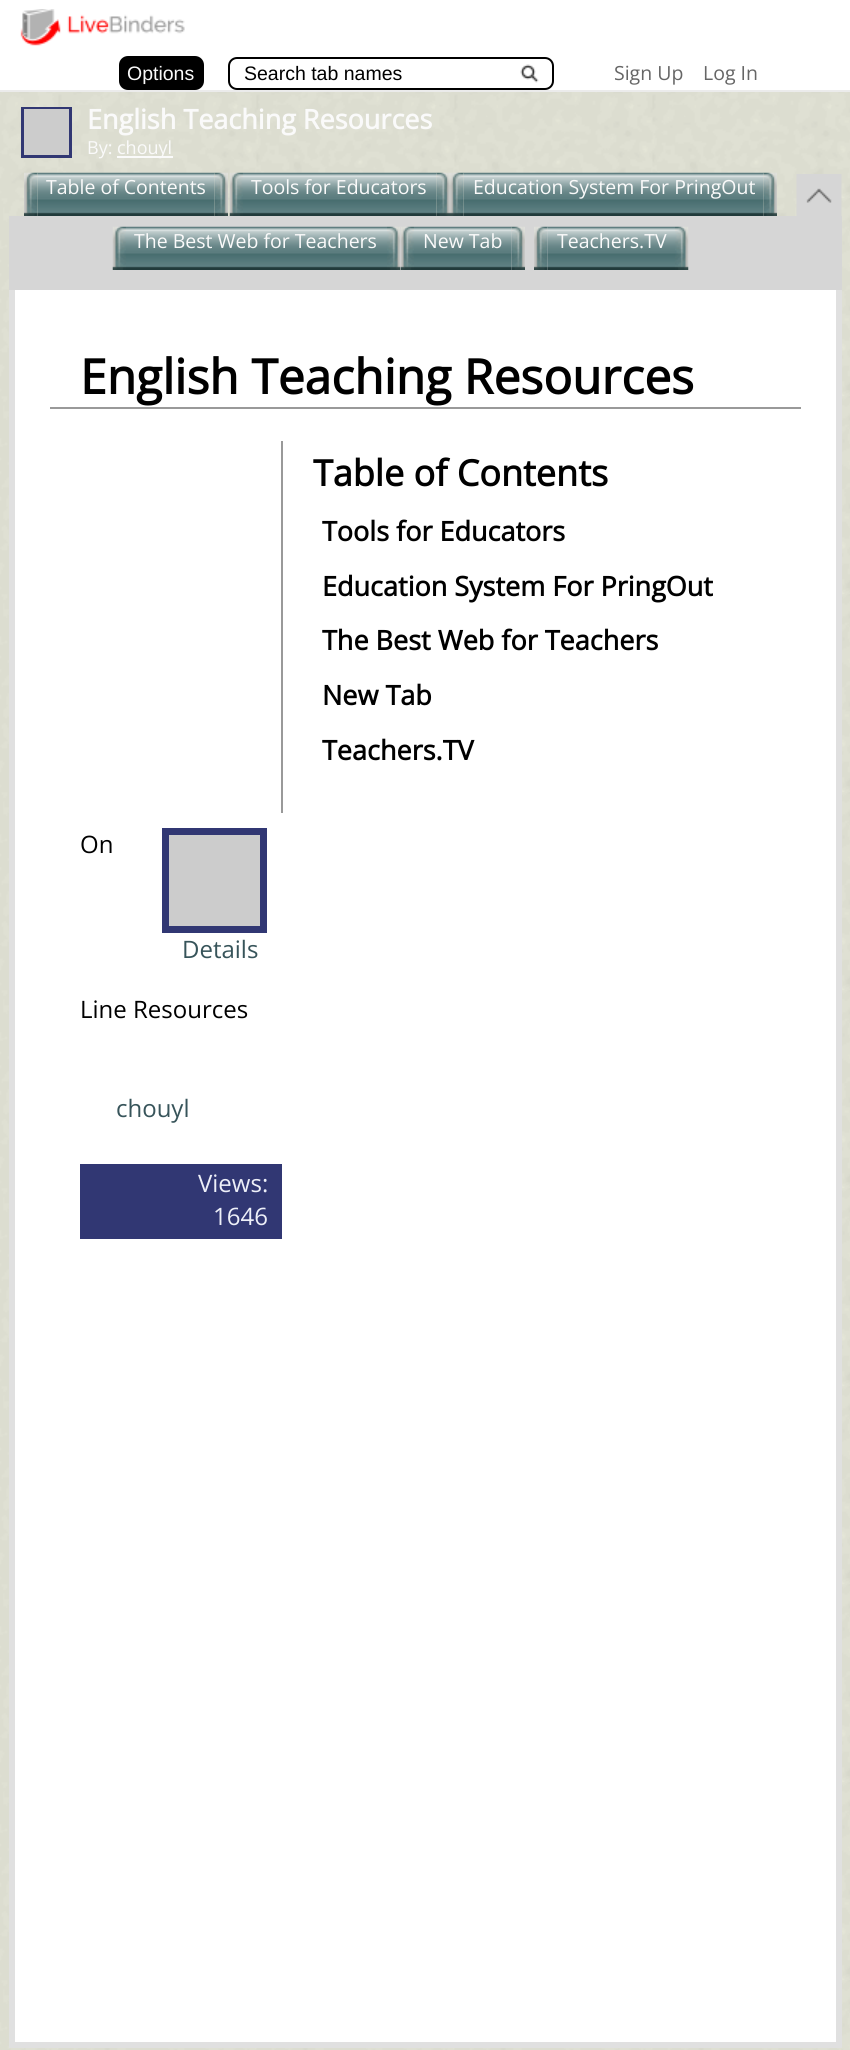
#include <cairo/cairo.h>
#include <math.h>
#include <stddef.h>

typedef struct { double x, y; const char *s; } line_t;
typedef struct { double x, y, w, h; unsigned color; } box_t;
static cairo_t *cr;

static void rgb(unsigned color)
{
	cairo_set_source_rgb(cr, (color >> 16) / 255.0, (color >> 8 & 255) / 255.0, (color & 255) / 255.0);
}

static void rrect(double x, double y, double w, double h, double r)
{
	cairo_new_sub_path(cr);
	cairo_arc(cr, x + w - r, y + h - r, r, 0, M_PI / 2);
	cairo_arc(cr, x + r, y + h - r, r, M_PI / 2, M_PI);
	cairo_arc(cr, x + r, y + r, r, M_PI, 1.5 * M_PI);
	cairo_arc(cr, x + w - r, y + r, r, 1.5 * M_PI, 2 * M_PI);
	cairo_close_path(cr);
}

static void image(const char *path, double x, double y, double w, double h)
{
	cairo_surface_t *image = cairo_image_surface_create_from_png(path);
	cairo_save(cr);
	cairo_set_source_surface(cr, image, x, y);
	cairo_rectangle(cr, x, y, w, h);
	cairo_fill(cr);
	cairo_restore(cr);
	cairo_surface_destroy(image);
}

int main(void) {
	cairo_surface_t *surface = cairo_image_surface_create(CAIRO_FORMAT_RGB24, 850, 2050);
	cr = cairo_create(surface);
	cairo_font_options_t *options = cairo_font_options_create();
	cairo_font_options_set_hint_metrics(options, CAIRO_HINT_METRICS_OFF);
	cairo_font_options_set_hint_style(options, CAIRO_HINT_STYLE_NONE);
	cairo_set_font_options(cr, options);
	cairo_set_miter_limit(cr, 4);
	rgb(0xffffff);
	cairo_paint(cr);
	image("img/1.png", 0, 92, 850, 1958);
	rgb(0xebebeb);
	cairo_rectangle(cr, 0, 90, 850, 2);
	cairo_fill(cr);
	image("img/2.png", 20, 9, 165, 37);
	rgb(0x000000);
	rrect(120, 57, 83, 32, 8);
	cairo_fill_preserve(cr);
	cairo_stroke(cr);
	image("img/3.png", 520, 64, 19, 19);
	rrect(229, 58, 324, 31, 8);
	cairo_stroke(cr);
	{
		static const box_t items[] = {
			{21, 107, 51, 51, 0x313773},
			{24, 109, 45, 46, 0xcccccc},
			{117, 156, 56, 2, 0xfafafa},
			{9, 216, 833, 74, 0xd6d6d6},
		};
		for (size_t i = 0; i < sizeof items / sizeof *items; i++) {
			rgb(items[i].color);
			cairo_rectangle(cr, items[i].x, items[i].y, items[i].w, items[i].h);
			cairo_fill(cr);
		}
	}
	image("img/4.png", 24, 172, 14, 44);
	image("img/5.png", 37, 172, 178, 44);
	image("img/6.png", 214, 172, 14, 44);
	image("img/7.png", 229, 172, 14, 44);
	image("img/8.png", 243, 172, 194, 44);
	image("img/9.png", 436, 172, 14, 44);
	image("img/10.png", 450, 172, 14, 44);
	image("img/11.png", 463, 172, 301, 44);
	image("img/12.png", 763, 172, 14, 44);
	image("img/13.png", 112, 226, 14, 44);
	image("img/14.png", 126, 226, 261, 44);
	image("img/15.png", 387, 226, 14, 44);
	image("img/16.png", 400, 226, 14, 44);
	image("img/17.png", 414, 226, 98, 44);
	image("img/18.png", 511, 226, 14, 44);
	image("img/19.png", 534, 226, 14, 44);
	image("img/20.png", 547, 226, 128, 44);
	image("img/21.png", 675, 226, 14, 44);
	image("img/22.png", 796, 174, 46, 42);
	{
		static const box_t items[] = {
			{15, 290, 821, 1752, 0xffffff},
			{836, 290, 6, 1758, 0xe0e0e0},
			{9, 2042, 833, 6, 0xe0e0e0},
			{9, 290, 6, 1758, 0xe0e0e0},
			{50, 407, 751, 2, 0x999999},
			{281, 441, 2, 372, 0x999999},
			{162, 828, 105, 105, 0x313773},
			{169, 835, 91, 91, 0xcccccc},
			{80, 1164, 202, 75, 0x313773},
		};
		for (size_t i = 0; i < sizeof items / sizeof *items; i++) {
			rgb(items[i].color);
			cairo_rectangle(cr, items[i].x, items[i].y, items[i].w, items[i].h);
			cairo_fill(cr);
		}
	}
	cairo_select_font_face(cr, "Liberation Sans", CAIRO_FONT_SLANT_NORMAL, CAIRO_FONT_WEIGHT_NORMAL);
	cairo_set_font_size(cr, 19.5);
	rgb(0xfafafa);
	cairo_move_to(cr, 127, 80);
	cairo_show_text(cr, "Options");
	rgb(0x000000);
	cairo_move_to(cr, 244, 80);
	cairo_show_text(cr, "Search tab names");
	cairo_select_font_face(cr, "Open Sans", CAIRO_FONT_SLANT_NORMAL, CAIRO_FONT_WEIGHT_NORMAL);
	rgb(0x666666);
	cairo_move_to(cr, 614, 80);
	cairo_show_text(cr, "Sign Up");
	cairo_move_to(cr, 703, 80);
	cairo_show_text(cr, "Log In");
	cairo_select_font_face(cr, "Open Sans", CAIRO_FONT_SLANT_NORMAL, CAIRO_FONT_WEIGHT_BOLD);
	cairo_set_font_size(cr, 27);
	rgb(0xfafafa);
	cairo_move_to(cr, 87, 129);
	cairo_show_text(cr, "English Teaching Resources");
	cairo_select_font_face(cr, "Open Sans", CAIRO_FONT_SLANT_NORMAL, CAIRO_FONT_WEIGHT_NORMAL);
	cairo_set_font_size(cr, 18);
	cairo_move_to(cr, 87, 154);
	cairo_show_text(cr, "By:");
	cairo_move_to(cr, 117, 154);
	cairo_show_text(cr, "chouyl");
	cairo_set_font_size(cr, 19.5);
	{
		static const line_t items[] = {
			{46, 194, "Table of Contents"},
			{251, 194, "Tools for Educators"},
			{473, 194, "Education System For PringOut"},
			{134, 248, "The Best Web for Teachers"},
			{423, 248, "New Tab"},
			{557, 248, "Teachers.TV"},
		};
		for (size_t i = 0; i < sizeof items / sizeof *items; i++) {
			cairo_move_to(cr, items[i].x, items[i].y);
			cairo_show_text(cr, items[i].s);
		}
	}
	cairo_select_font_face(cr, "Open Sans", CAIRO_FONT_SLANT_NORMAL, CAIRO_FONT_WEIGHT_BOLD);
	cairo_set_font_size(cr, 48);
	rgb(0x000000);
	cairo_move_to(cr, 80, 394);
	cairo_show_text(cr, "English Teaching Resources");
	cairo_set_font_size(cr, 36);
	cairo_move_to(cr, 313, 486);
	cairo_show_text(cr, "Table of Contents");
	cairo_set_font_size(cr, 27);
	{
		static const line_t items[] = {
			{322, 541, "Tools for Educators"},
			{322, 596, "Education System For PringOut"},
			{322, 650, "The Best Web for Teachers"},
			{322, 705, "New Tab"},
			{322, 760, "Teachers.TV"},
		};
		for (size_t i = 0; i < sizeof items / sizeof *items; i++) {
			cairo_move_to(cr, items[i].x, items[i].y);
			cairo_show_text(cr, items[i].s);
		}
	}
	cairo_select_font_face(cr, "Open Sans", CAIRO_FONT_SLANT_NORMAL, CAIRO_FONT_WEIGHT_NORMAL);
	cairo_set_font_size(cr, 24);
	cairo_move_to(cr, 80, 853);
	cairo_show_text(cr, "On");
	rgb(0x37545a);
	cairo_move_to(cr, 182, 958);
	cairo_show_text(cr, "Details");
	rgb(0x000000);
	cairo_move_to(cr, 80, 1018);
	cairo_show_text(cr, "Line Resources");
	rgb(0x37545a);
	cairo_move_to(cr, 116, 1117);
	cairo_show_text(cr, "chouyl");
	rgb(0xedeff8);
	cairo_move_to(cr, 198, 1192);
	cairo_show_text(cr, "Views:");
	cairo_move_to(cr, 213, 1225);
	cairo_show_text(cr, "1646");
	cairo_surface_write_to_png(surface, "page.png");
	cairo_font_options_destroy(options);
	cairo_destroy(cr);
	cairo_surface_destroy(surface);
	return 0;
}
